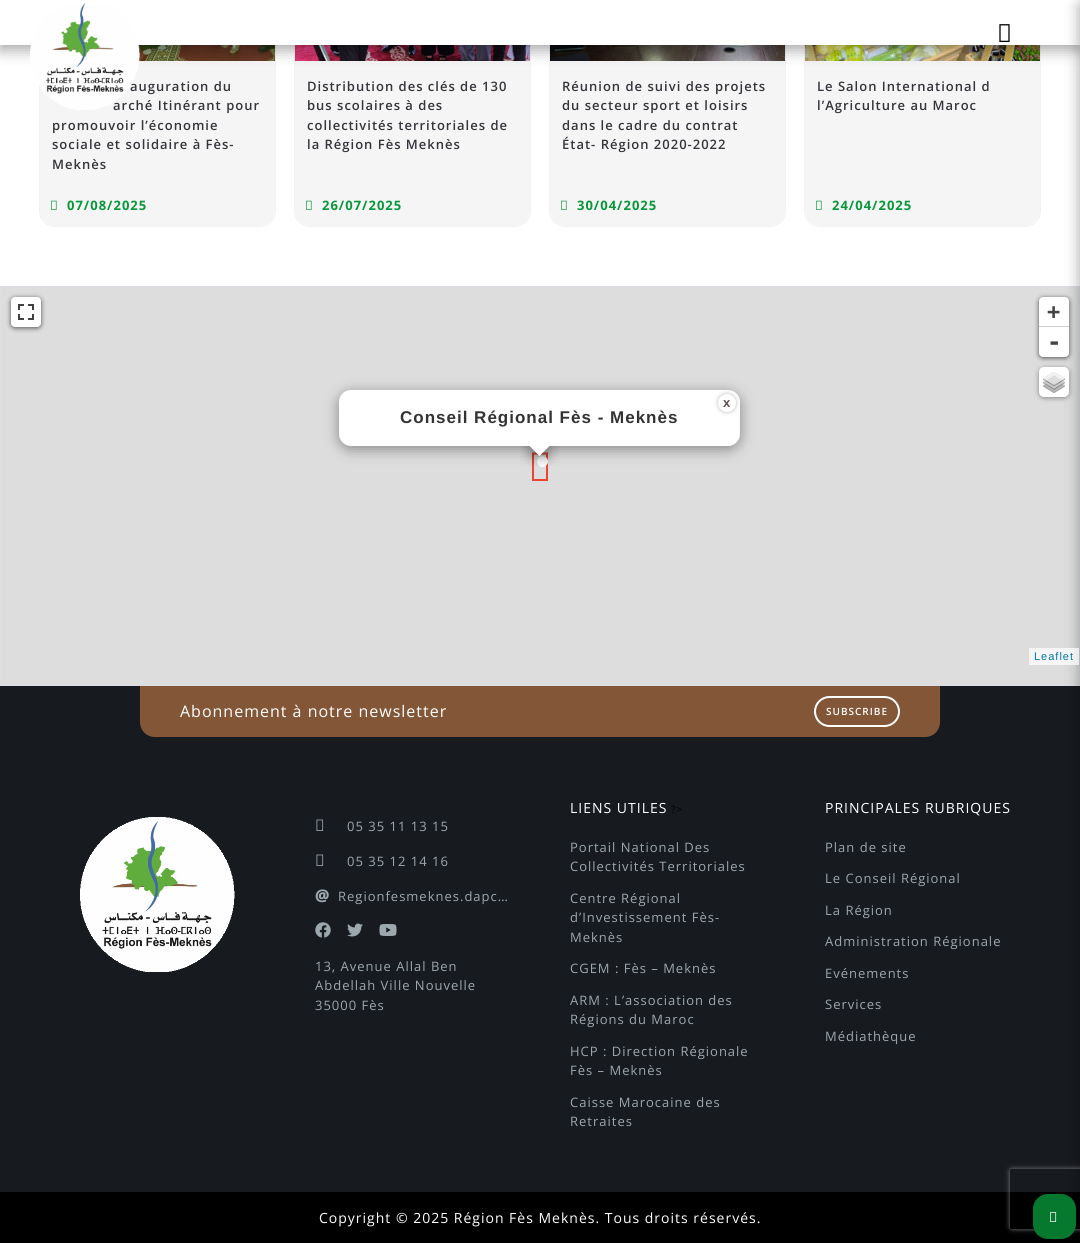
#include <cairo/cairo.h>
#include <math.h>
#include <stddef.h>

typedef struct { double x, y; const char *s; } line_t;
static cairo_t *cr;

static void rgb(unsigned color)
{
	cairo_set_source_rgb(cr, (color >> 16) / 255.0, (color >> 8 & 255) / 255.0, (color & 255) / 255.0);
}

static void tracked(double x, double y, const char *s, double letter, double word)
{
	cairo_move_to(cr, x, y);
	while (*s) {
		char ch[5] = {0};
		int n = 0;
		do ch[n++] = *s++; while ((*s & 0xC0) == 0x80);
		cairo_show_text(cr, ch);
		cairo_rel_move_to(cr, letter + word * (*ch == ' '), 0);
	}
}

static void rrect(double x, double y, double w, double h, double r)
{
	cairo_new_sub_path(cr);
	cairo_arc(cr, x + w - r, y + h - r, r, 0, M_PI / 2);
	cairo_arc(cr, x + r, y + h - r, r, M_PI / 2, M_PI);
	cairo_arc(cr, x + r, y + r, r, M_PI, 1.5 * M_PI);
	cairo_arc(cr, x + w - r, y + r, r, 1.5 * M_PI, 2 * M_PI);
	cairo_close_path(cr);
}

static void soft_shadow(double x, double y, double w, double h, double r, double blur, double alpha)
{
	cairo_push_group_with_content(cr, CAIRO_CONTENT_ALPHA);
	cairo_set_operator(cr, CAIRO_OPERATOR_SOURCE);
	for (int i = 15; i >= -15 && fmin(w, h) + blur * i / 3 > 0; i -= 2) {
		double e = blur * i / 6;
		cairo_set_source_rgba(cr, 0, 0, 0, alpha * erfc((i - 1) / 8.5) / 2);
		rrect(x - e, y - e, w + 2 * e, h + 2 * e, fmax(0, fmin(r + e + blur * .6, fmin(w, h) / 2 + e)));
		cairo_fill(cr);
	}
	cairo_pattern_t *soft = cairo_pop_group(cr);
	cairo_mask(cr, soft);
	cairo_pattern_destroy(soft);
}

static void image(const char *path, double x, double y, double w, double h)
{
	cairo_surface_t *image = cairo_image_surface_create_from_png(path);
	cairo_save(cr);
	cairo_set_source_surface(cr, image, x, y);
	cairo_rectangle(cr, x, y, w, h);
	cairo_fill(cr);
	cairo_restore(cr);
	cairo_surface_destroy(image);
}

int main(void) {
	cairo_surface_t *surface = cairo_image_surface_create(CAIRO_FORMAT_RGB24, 1080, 1243);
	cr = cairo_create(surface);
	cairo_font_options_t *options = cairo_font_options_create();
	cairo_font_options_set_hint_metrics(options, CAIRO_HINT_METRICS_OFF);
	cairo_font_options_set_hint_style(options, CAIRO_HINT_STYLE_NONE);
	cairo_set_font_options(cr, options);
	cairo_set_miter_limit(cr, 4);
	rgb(0xffffff);
	cairo_paint(cr);
	rrect(39.5, -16.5, 236, 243, 15.5);
	rgb(0xf2f2f2);
	cairo_set_line_width(cr, 1);
	cairo_stroke(cr);
	rgb(0xf5f5f5);
	rrect(40, -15, 235, 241, 15);
	cairo_fill(cr);
	image("img/3.png", 138, 45, 137, 16);
	rrect(294.5, -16.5, 236, 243, 15.5);
	rgb(0xf2f2f2);
	cairo_stroke(cr);
	rgb(0xf5f5f5);
	rrect(295, -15, 235, 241, 15);
	cairo_fill(cr);
	image("img/5.png", 295, 45, 235, 16);
	rrect(549.5, -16.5, 236, 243, 15.5);
	rgb(0xf2f2f2);
	cairo_stroke(cr);
	rgb(0xf5f5f5);
	rrect(550, -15, 235, 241, 15);
	cairo_fill(cr);
	image("img/6.png", 550, 45, 235, 16);
	rrect(804.5, -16.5, 236, 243, 15.5);
	rgb(0xf2f2f2);
	cairo_stroke(cr);
	rgb(0xf5f5f5);
	rrect(805, -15, 235, 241, 15);
	cairo_fill(cr);
	image("img/7.png", 805, 45, 235, 16);
	rgb(0x000000);
	soft_shadow(0, 5, 1080, 45, 0, 7.5, 0.35);
	rgb(0xffffff);
	cairo_rectangle(cr, 0, 0, 1080, 45);
	cairo_fill(cr);
	image("img/2.png", 999, 24, 11, 18);
	rgb(0x171a1f);
	cairo_rectangle(cr, 0, 686, 1080, 506);
	cairo_fill(cr);
	rgb(0xdddddd);
	cairo_rectangle(cr, 0.5, 286.5, 1079, 399);
	cairo_fill_preserve(cr);
	rgb(0xdcdfe7);
	cairo_stroke(cr);
	rgb(0x000000);
	cairo_rectangle(cr, 0, 1192, 1080, 51);
	cairo_fill(cr);
	rgb(0x000000);
	soft_shadow(1080, 5, 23, 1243, 0, 7.5, 0.35);
	image("img/4.png", 51, 200, 6, 10);
	image("img/4.png", 306, 200, 6, 10);
	image("img/4.png", 561, 200, 6, 10);
	image("img/4.png", 816, 200, 6, 10);
	rgb(0xea4434);
	cairo_new_path(cr);
	cairo_move_to(cr, 532, 481);
	cairo_line_to(cr, 532, 452.5);
	cairo_line_to(cr, 548, 452.5);
	cairo_line_to(cr, 548, 481);
	cairo_close_path(cr);
	cairo_move_to(cr, 534, 479);
	cairo_line_to(cr, 546, 479);
	cairo_line_to(cr, 546, 454.5);
	cairo_line_to(cr, 534, 454.5);
	cairo_close_path(cr);
	cairo_fill(cr);
	rgb(0xffffff);
	cairo_arc(cr, 542.5, 461.5, 5.5, 0, 2 * M_PI);
	cairo_fill(cr);
	rgb(0x000000);
	soft_shadow(339, 393, 401, 56, 12, 7, 0.4);
	rgb(0xffffff);
	rrect(339, 390, 401, 56, 12);
	cairo_fill(cr);
	rgb(0x999999);
	soft_shadow(719, 395, 16, 16, 8, 2.5, 1);
	rgb(0xffffff);
	cairo_arc(cr, 727, 403, 9, 0, 2 * M_PI);
	cairo_fill(cr);
	cairo_save(cr);
	cairo_rectangle(cr, 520, 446, 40, 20);
	cairo_clip(cr);
	rgb(0x000000);
	soft_shadow(531, 439, 17, 17, 0, 7, 0.4);
	cairo_restore(cr);
	cairo_save(cr);
	cairo_rectangle(cr, 520, 446, 40, 20);
	cairo_clip(cr);
	cairo_new_path(cr);
	cairo_move_to(cr, 539.5, 432);
	cairo_line_to(cr, 551.5, 444);
	cairo_line_to(cr, 539.5, 456);
	cairo_line_to(cr, 527.5, 444);
	cairo_close_path(cr);
	cairo_fill(cr);
	cairo_restore(cr);
	rgb(0x000000);
	soft_shadow(11, 298, 30, 30, 4, 2.5, 0.65);
	rgb(0xffffff);
	rrect(11, 297, 30, 30, 4);
	cairo_fill(cr);
	image("img/8.png", 18, 304, 16, 16);
	rgb(0x000000);
	soft_shadow(1039, 298, 30, 60, 4, 2.5, 0.65);
	rgb(0xffffff);
	cairo_new_path(cr);
	cairo_move_to(cr, 1043, 297);
	cairo_line_to(cr, 1065, 297);
	cairo_curve_to(cr, 1067, 297, 1069, 299, 1069, 301);
	cairo_line_to(cr, 1069, 327);
	cairo_line_to(cr, 1039, 327);
	cairo_line_to(cr, 1039, 301);
	cairo_curve_to(cr, 1039, 299, 1041, 297, 1043, 297);
	cairo_close_path(cr);
	cairo_fill(cr);
	rgb(0xcccccc);
	cairo_rectangle(cr, 1039, 326, 30, 1);
	cairo_fill(cr);
	rgb(0xffffff);
	cairo_new_path(cr);
	cairo_move_to(cr, 1039, 327);
	cairo_line_to(cr, 1069, 327);
	cairo_line_to(cr, 1069, 353);
	cairo_curve_to(cr, 1069, 355, 1067, 357, 1065, 357);
	cairo_line_to(cr, 1043, 357);
	cairo_curve_to(cr, 1041, 357, 1039, 355, 1039, 353);
	cairo_close_path(cr);
	cairo_fill(cr);
	rgb(0x000000);
	soft_shadow(1039, 368, 30, 30, 5, 2.5, 0.4);
	rgb(0xffffff);
	rrect(1039, 367, 30, 30, 5);
	cairo_fill(cr);
	image("img/9.png", 1043, 372, 22, 21);
	cairo_set_source_rgba(cr, 1, 1, 1, 0.7);
	cairo_rectangle(cr, 1029, 648, 50, 17);
	cairo_fill(cr);
	rgb(0x825637);
	cairo_new_path(cr);
	cairo_move_to(cr, 140, 686);
	cairo_line_to(cr, 940, 686);
	cairo_line_to(cr, 940, 722);
	cairo_curve_to(cr, 940, 730.5, 933.5, 737, 925, 737);
	cairo_line_to(cr, 155, 737);
	cairo_curve_to(cr, 146.5, 737, 140, 730.5, 140, 722);
	cairo_close_path(cr);
	cairo_fill(cr);
	rrect(815, 697, 84, 29, 14.5);
	rgb(0xffffff);
	cairo_set_line_width(cr, 2);
	cairo_stroke(cr);
	image("img/10.png", 80, 817, 155, 155);
	image("img/11.png", 316, 819, 8, 12);
	image("img/11.png", 316, 854, 8, 12);
	image("img/12.png", 315, 922, 16, 16);
	image("img/13.png", 347, 923, 16, 14);
	image("img/14.png", 379, 924, 18, 12);
	cairo_save(cr);
	cairo_set_fill_rule(cr, CAIRO_FILL_RULE_EVEN_ODD);
	cairo_new_path(cr);
	cairo_move_to(cr, 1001, 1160);
	cairo_line_to(cr, 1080, 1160);
	cairo_line_to(cr, 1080, 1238);
	cairo_line_to(cr, 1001, 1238);
	cairo_close_path(cr);
	cairo_move_to(cr, 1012, 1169);
	cairo_line_to(cr, 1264, 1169);
	cairo_curve_to(cr, 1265, 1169, 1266, 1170, 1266, 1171);
	cairo_line_to(cr, 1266, 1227);
	cairo_curve_to(cr, 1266, 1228, 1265, 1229, 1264, 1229);
	cairo_line_to(cr, 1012, 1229);
	cairo_curve_to(cr, 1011, 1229, 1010, 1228, 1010, 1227);
	cairo_line_to(cr, 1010, 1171);
	cairo_curve_to(cr, 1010, 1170, 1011, 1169, 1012, 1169);
	cairo_close_path(cr);
	cairo_clip(cr);
	rgb(0x808080);
	soft_shadow(1010, 1169, 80, 60, 2, 2.5, 1);
	cairo_restore(cr);
	rgb(0x07792f);
	rrect(1033, 1194, 43, 45, 15);
	cairo_fill(cr);
	image("img/15.png", 1050, 1212, 7, 10);
	cairo_select_font_face(cr, "Open Sans SemiBold", CAIRO_FONT_SLANT_NORMAL, CAIRO_FONT_WEIGHT_NORMAL);
	cairo_set_font_size(cr, 13);
	rgb(0x36353c);
	tracked(130, 91, "auguration du", 1, 0);
	tracked(113, 110, "arché Itinérant pour", 1, 0);
	image("img/1.png", 30, 3, 110, 107);
	{
		static const line_t items[] = {
			{52, 130, "promouvoir l’économie"},
			{52, 149, "sociale et solidaire à Fès-"},
			{52, 169, "Meknès"},
		};
		for (size_t i = 0; i < sizeof items / sizeof *items; i++) {
			tracked(items[i].x, items[i].y, items[i].s, 1, 0);
		}
	}
	cairo_select_font_face(cr, "Open Sans", CAIRO_FONT_SLANT_NORMAL, CAIRO_FONT_WEIGHT_BOLD);
	rgb(0x09973b);
	tracked(67, 210, "07/08/2025", 1, 0);
	cairo_select_font_face(cr, "Open Sans SemiBold", CAIRO_FONT_SLANT_NORMAL, CAIRO_FONT_WEIGHT_NORMAL);
	rgb(0x36353c);
	{
		static const line_t items[] = {
			{307, 91, "Distribution des clés de 130"},
			{307, 110, "bus scolaires à des"},
			{307, 130, "collectivités territoriales de"},
			{307, 149, "la Région Fès Meknès"},
		};
		for (size_t i = 0; i < sizeof items / sizeof *items; i++) {
			tracked(items[i].x, items[i].y, items[i].s, 1, 0);
		}
	}
	cairo_select_font_face(cr, "Open Sans", CAIRO_FONT_SLANT_NORMAL, CAIRO_FONT_WEIGHT_BOLD);
	rgb(0x09973b);
	tracked(322, 210, "26/07/2025", 1, 0);
	cairo_select_font_face(cr, "Open Sans SemiBold", CAIRO_FONT_SLANT_NORMAL, CAIRO_FONT_WEIGHT_NORMAL);
	rgb(0x36353c);
	{
		static const line_t items[] = {
			{562, 91, "Réunion de suivi des projets"},
			{562, 110, "du secteur sport et loisirs"},
			{562, 130, "dans le cadre du contrat"},
			{562, 149, "État- Région 2020-2022"},
		};
		for (size_t i = 0; i < sizeof items / sizeof *items; i++) {
			tracked(items[i].x, items[i].y, items[i].s, 1, 0);
		}
	}
	cairo_select_font_face(cr, "Open Sans", CAIRO_FONT_SLANT_NORMAL, CAIRO_FONT_WEIGHT_BOLD);
	rgb(0x09973b);
	tracked(577, 210, "30/04/2025", 1, 0);
	cairo_select_font_face(cr, "Open Sans SemiBold", CAIRO_FONT_SLANT_NORMAL, CAIRO_FONT_WEIGHT_NORMAL);
	rgb(0x36353c);
	tracked(817, 91, "Le Salon International d", 1, 0);
	tracked(817, 110, "l’Agriculture au Maroc", 1, 0);
	cairo_select_font_face(cr, "Open Sans", CAIRO_FONT_SLANT_NORMAL, CAIRO_FONT_WEIGHT_BOLD);
	rgb(0x09973b);
	tracked(832, 210, "24/04/2025", 1, 0);
	cairo_select_font_face(cr, "Liberation Sans", CAIRO_FONT_SLANT_NORMAL, CAIRO_FONT_WEIGHT_BOLD);
	rgb(0x5b504e);
	tracked(723, 407, "x", 1, 0);
	cairo_set_font_size(cr, 17);
	rgb(0x333333);
	tracked(400, 423, "Conseil Régional Fès - Meknès", 1, 0);
	cairo_select_font_face(cr, "DejaVu Sans Mono", CAIRO_FONT_SLANT_NORMAL, CAIRO_FONT_WEIGHT_BOLD);
	cairo_set_font_size(cr, 22);
	rgb(0x444444);
	tracked(1047, 319, "+", 1, 0);
	cairo_set_font_size(cr, 24);
	tracked(1047, 350, "-", 1, 0);
	cairo_select_font_face(cr, "Liberation Sans", CAIRO_FONT_SLANT_NORMAL, CAIRO_FONT_WEIGHT_NORMAL);
	cairo_set_font_size(cr, 11);
	rgb(0x0078a8);
	tracked(1034, 660, "Leaflet", 1, 0);
	cairo_select_font_face(cr, "Open Sans", CAIRO_FONT_SLANT_NORMAL, CAIRO_FONT_WEIGHT_NORMAL);
	cairo_set_font_size(cr, 16);
	rgb(0xffffff);
	tracked(180, 717, "Abonnement à notre newsletter", 1, 0);
	cairo_select_font_face(cr, "Open Sans SemiBold", CAIRO_FONT_SLANT_NORMAL, CAIRO_FONT_WEIGHT_NORMAL);
	cairo_set_font_size(cr, 10);
	tracked(826, 715, "SUBSCRIBE", 1, 0);
	cairo_select_font_face(cr, "Open Sans", CAIRO_FONT_SLANT_NORMAL, CAIRO_FONT_WEIGHT_NORMAL);
	cairo_set_font_size(cr, 13);
	rgb(0x9ca8ae);
	tracked(347, 831, "05 35 11 13 15", 1, 0);
	tracked(347, 866, "05 35 12 14 16", 1, 0);
	cairo_select_font_face(cr, "Noto Sans Black", CAIRO_FONT_SLANT_NORMAL, CAIRO_FONT_WEIGHT_NORMAL);
	cairo_set_font_size(cr, 16);
	tracked(315, 901, "@", 1, 0);
	cairo_select_font_face(cr, "Open Sans", CAIRO_FONT_SLANT_NORMAL, CAIRO_FONT_WEIGHT_NORMAL);
	cairo_set_font_size(cr, 13);
	{
		static const line_t items[] = {
			{338, 901, "Regionfesmeknes.dapc…"},
			{315, 971, "13, Avenue Allal Ben"},
			{315, 990, "Abdellah Ville Nouvelle"},
			{315, 1010, "35000 Fès"},
		};
		for (size_t i = 0; i < sizeof items / sizeof *items; i++) {
			tracked(items[i].x, items[i].y, items[i].s, 1, 0);
		}
	}
	cairo_set_font_size(cr, 14);
	rgb(0xffffff);
	tracked(570, 813, "LIENS UTILES", 1, 0);
	cairo_set_font_size(cr, 10);
	rgb(0x000000);
	tracked(671, 813, "?>", 1, 0);
	cairo_set_font_size(cr, 13);
	rgb(0x9ca8ae);
	{
		static const line_t items[] = {
			{570, 852, "Portail National Des"},
			{570, 871, "Collectivités Territoriales"},
			{570, 903, "Centre Régional"},
			{570, 922, "d’Investissement Fès-"},
			{570, 942, "Meknès"},
			{570, 973, "CGEM : Fès – Meknès"},
			{570, 1005, "ARM : L’association des"},
			{570, 1024, "Régions du Maroc"},
			{570, 1056, "HCP : Direction Régionale"},
			{570, 1075, "Fès – Meknès"},
			{570, 1107, "Caisse Marocaine des"},
			{570, 1126, "Retraites"},
		};
		for (size_t i = 0; i < sizeof items / sizeof *items; i++) {
			tracked(items[i].x, items[i].y, items[i].s, 1, 0);
		}
	}
	cairo_set_font_size(cr, 14);
	rgb(0xffffff);
	tracked(825, 813, "PRINCIPALES RUBRIQUES", 1, 0);
	cairo_set_font_size(cr, 13);
	rgb(0x9ca8ae);
	{
		static const line_t items[] = {
			{825, 852, "Plan de site"},
			{825, 883, "Le Conseil Régional"},
			{825, 915, "La Région"},
			{825, 946, "Administration Régionale"},
			{825, 978, "Evénements"},
			{825, 1009, "Services"},
			{825, 1041, "Médiathèque"},
		};
		for (size_t i = 0; i < sizeof items / sizeof *items; i++) {
			tracked(items[i].x, items[i].y, items[i].s, 1, 0);
		}
	}
	cairo_set_font_size(cr, 14);
	rgb(0xffffff);
	tracked(319, 1223, "Copyright © 2025 Région Fès Meknès. Tous droits réservés.", 1, 0);
	cairo_surface_write_to_png(surface, "page.png");
	cairo_font_options_destroy(options);
	cairo_destroy(cr);
	cairo_surface_destroy(surface);
	return 0;
}
